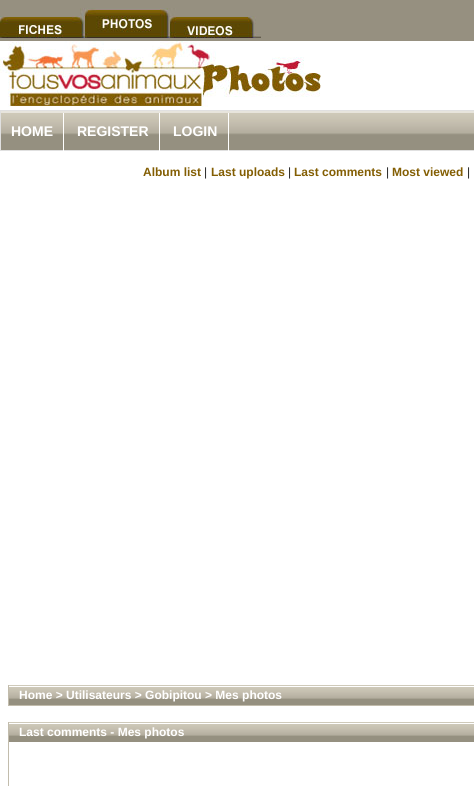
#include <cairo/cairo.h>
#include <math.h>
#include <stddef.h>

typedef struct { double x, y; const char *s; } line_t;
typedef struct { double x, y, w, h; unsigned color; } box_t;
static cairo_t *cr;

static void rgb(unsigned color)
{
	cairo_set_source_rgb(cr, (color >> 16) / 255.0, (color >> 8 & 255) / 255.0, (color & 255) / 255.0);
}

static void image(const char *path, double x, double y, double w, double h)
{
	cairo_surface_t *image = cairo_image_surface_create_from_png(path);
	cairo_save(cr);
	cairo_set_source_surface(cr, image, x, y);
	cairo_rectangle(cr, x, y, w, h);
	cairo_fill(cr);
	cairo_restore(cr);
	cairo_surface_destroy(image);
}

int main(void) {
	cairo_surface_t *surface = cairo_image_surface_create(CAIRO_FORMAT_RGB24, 474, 786);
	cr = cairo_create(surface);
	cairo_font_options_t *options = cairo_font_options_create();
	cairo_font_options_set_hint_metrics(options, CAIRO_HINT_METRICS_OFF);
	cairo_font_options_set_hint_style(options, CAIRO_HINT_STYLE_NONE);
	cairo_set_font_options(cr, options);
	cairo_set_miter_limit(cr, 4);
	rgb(0xffffff);
	cairo_paint(cr);
	rgb(0x969080);
	cairo_rectangle(cr, 0, 0, 474, 41);
	cairo_fill(cr);
	image("img/1.png", 0, 8, 261, 30);
	image("img/2.png", 0, 41, 321, 66);
	image("img/3.png", 1, 111, 473, 39);
	{
		static const box_t items[] = {
			{0, 110, 474, 1, 0xe0e0e0},
			{0, 150, 474, 1, 0xe0e0e0},
			{0, 110, 1, 41, 0xe0e0e0},
			{63, 113, 1, 46, 0xffffff},
			{159, 113, 1, 46, 0xffffff},
			{228, 113, 1, 46, 0xffffff},
			{8, 705, 466, 1, 0xc2bcac},
			{8, 685, 1, 21, 0xc2bcac},
		};
		for (size_t i = 0; i < sizeof items / sizeof *items; i++) {
			rgb(items[i].color);
			cairo_rectangle(cr, items[i].x, items[i].y, items[i].w, items[i].h);
			cairo_fill(cr);
		}
	}
	image("img/4.png", 9, 685, 465, 20);
	cairo_rectangle(cr, 8, 722, 1, 64);
	cairo_fill(cr);
	image("img/4.png", 9, 722, 465, 20);
	cairo_select_font_face(cr, "Liberation Sans", CAIRO_FONT_SLANT_NORMAL, CAIRO_FONT_WEIGHT_BOLD);
	cairo_set_font_size(cr, 14);
	rgb(0xffffff);
	{
		static const line_t items[] = {
			{11, 136, "HOME"},
			{77, 136, "REGISTER"},
			{173, 136, "LOGIN"},
		};
		for (size_t i = 0; i < sizeof items / sizeof *items; i++) {
			cairo_move_to(cr, items[i].x, items[i].y);
			cairo_show_text(cr, items[i].s);
		}
	}
	cairo_set_font_size(cr, 12);
	rgb(0x835e03);
	cairo_move_to(cr, 143, 176);
	cairo_show_text(cr, "Album list");
	cairo_select_font_face(cr, "Liberation Sans", CAIRO_FONT_SLANT_NORMAL, CAIRO_FONT_WEIGHT_NORMAL);
	rgb(0x222222);
	cairo_move_to(cr, 204, 176);
	cairo_show_text(cr, "|");
	cairo_select_font_face(cr, "Liberation Sans", CAIRO_FONT_SLANT_NORMAL, CAIRO_FONT_WEIGHT_BOLD);
	rgb(0x835e03);
	cairo_move_to(cr, 211, 176);
	cairo_show_text(cr, "Last uploads");
	cairo_select_font_face(cr, "Liberation Sans", CAIRO_FONT_SLANT_NORMAL, CAIRO_FONT_WEIGHT_NORMAL);
	rgb(0x222222);
	cairo_move_to(cr, 288, 176);
	cairo_show_text(cr, "|");
	cairo_select_font_face(cr, "Liberation Sans", CAIRO_FONT_SLANT_NORMAL, CAIRO_FONT_WEIGHT_BOLD);
	rgb(0x835e03);
	cairo_move_to(cr, 294, 176);
	cairo_show_text(cr, "Last comments");
	cairo_select_font_face(cr, "Liberation Sans", CAIRO_FONT_SLANT_NORMAL, CAIRO_FONT_WEIGHT_NORMAL);
	rgb(0x222222);
	cairo_move_to(cr, 386, 176);
	cairo_show_text(cr, "|");
	cairo_select_font_face(cr, "Liberation Sans", CAIRO_FONT_SLANT_NORMAL, CAIRO_FONT_WEIGHT_BOLD);
	rgb(0x835e03);
	cairo_move_to(cr, 392, 176);
	cairo_show_text(cr, "Most viewed");
	cairo_select_font_face(cr, "Liberation Sans", CAIRO_FONT_SLANT_NORMAL, CAIRO_FONT_WEIGHT_NORMAL);
	rgb(0x222222);
	cairo_move_to(cr, 467, 176);
	cairo_show_text(cr, "|");
	cairo_select_font_face(cr, "Liberation Sans", CAIRO_FONT_SLANT_NORMAL, CAIRO_FONT_WEIGHT_BOLD);
	rgb(0xffffff);
	cairo_move_to(cr, 19, 699);
	cairo_show_text(cr, "Home > Utilisateurs > Gobipitou > Mes photos");
	cairo_move_to(cr, 19, 736);
	cairo_show_text(cr, "Last comments - Mes photos");
	cairo_surface_write_to_png(surface, "page.png");
	cairo_font_options_destroy(options);
	cairo_destroy(cr);
	cairo_surface_destroy(surface);
	return 0;
}
